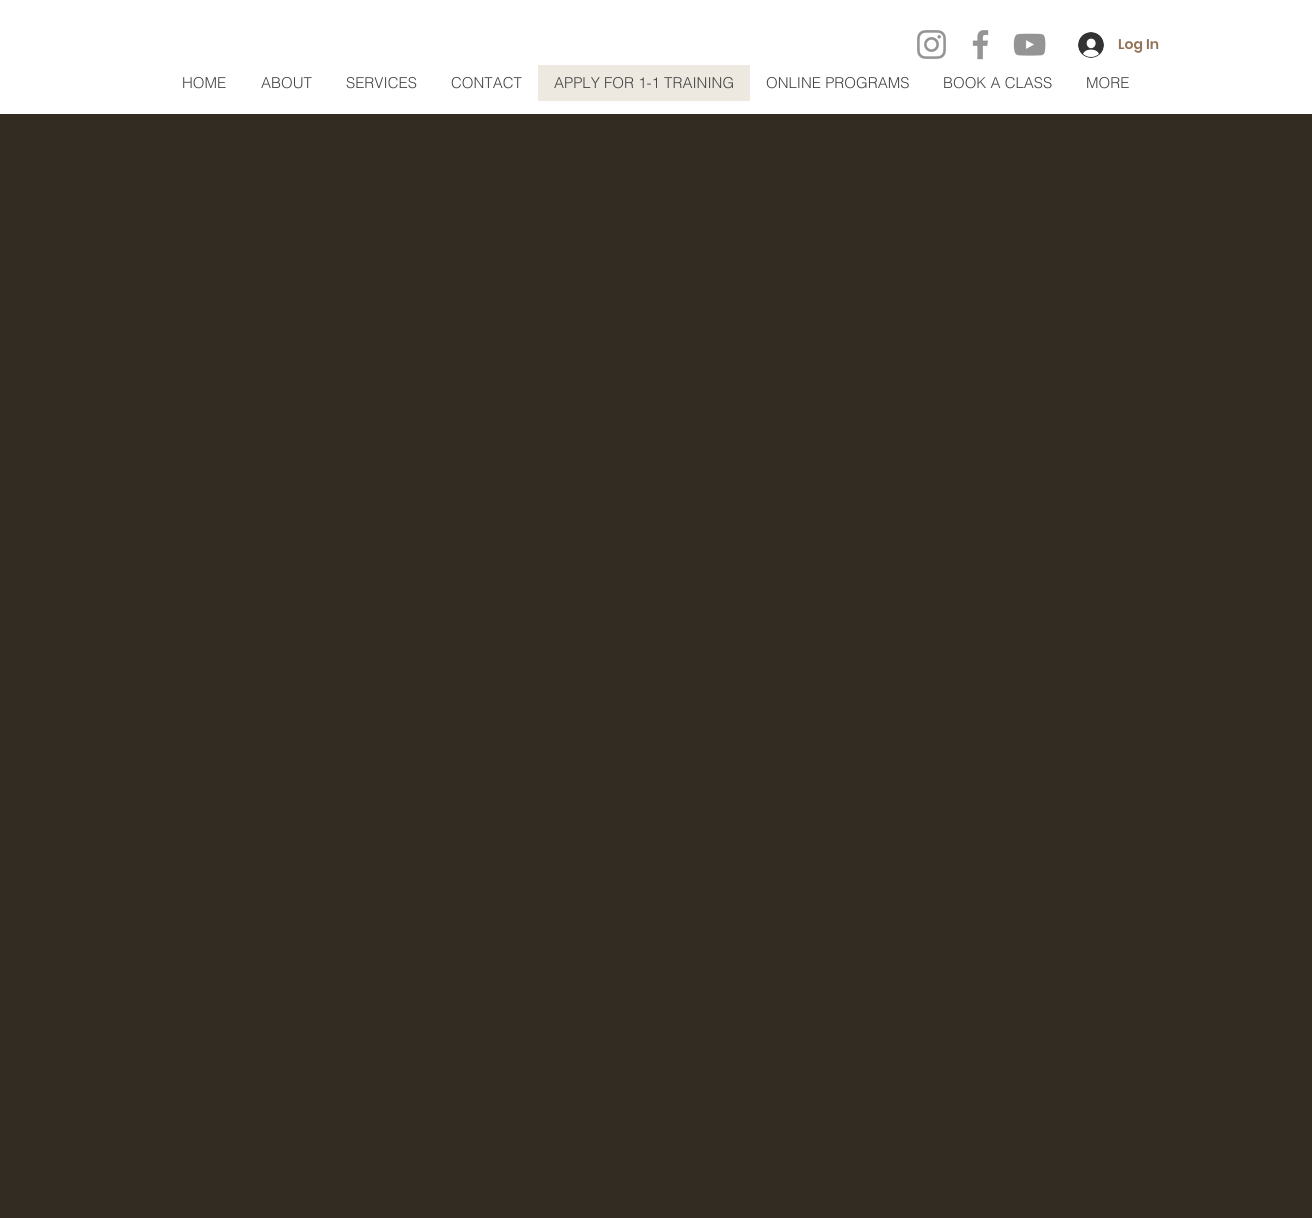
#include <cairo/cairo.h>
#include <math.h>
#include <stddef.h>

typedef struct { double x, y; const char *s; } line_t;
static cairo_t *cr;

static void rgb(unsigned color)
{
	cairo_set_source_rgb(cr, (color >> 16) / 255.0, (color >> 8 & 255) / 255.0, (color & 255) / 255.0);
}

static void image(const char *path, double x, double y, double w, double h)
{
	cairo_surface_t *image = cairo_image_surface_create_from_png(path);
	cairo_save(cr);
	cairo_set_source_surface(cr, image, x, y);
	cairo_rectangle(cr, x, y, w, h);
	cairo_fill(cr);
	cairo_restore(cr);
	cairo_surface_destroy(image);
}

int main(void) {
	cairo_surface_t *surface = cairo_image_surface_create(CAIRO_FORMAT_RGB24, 1312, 1218);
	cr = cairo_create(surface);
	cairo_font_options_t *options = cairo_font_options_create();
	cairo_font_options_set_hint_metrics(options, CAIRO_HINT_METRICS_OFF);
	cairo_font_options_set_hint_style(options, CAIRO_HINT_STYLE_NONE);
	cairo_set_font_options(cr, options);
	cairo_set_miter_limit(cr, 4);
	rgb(0x332c23);
	cairo_paint(cr);
	rgb(0xffffff);
	cairo_rectangle(cr, 0, 0, 1312, 114);
	cairo_fill(cr);
	image("img/1.png", 917, 30, 29, 29);
	image("img/2.png", 972, 30, 17, 30);
	image("img/3.png", 1013, 33, 33, 23);
	image("img/4.png", 1078, 32, 26, 26);
	rgb(0xede9e1);
	cairo_rectangle(cr, 538, 65, 212, 36);
	cairo_fill(cr);
	cairo_select_font_face(cr, "Poppins SemiBold", CAIRO_FONT_SLANT_NORMAL, CAIRO_FONT_WEIGHT_NORMAL);
	cairo_set_font_size(cr, 14);
	rgb(0x917357);
	cairo_move_to(cr, 1118, 49);
	cairo_show_text(cr, "Log In");
	cairo_select_font_face(cr, "helvetica Light", CAIRO_FONT_SLANT_NORMAL, CAIRO_FONT_WEIGHT_NORMAL);
	cairo_set_font_size(cr, 15);
	rgb(0x444444);
	{
		static const line_t items[] = {
			{182, 88, "HOME"},
			{261, 88, "ABOUT"},
			{346, 88, "SERVICES"},
			{451, 88, "CONTACT"},
			{554, 88, "APPLY FOR 1-1 TRAINING"},
			{766, 88, "ONLINE PROGRAMS"},
			{943, 88, "BOOK A CLASS"},
			{1086, 88, "MORE"},
		};
		for (size_t i = 0; i < sizeof items / sizeof *items; i++) {
			cairo_move_to(cr, items[i].x, items[i].y);
			cairo_show_text(cr, items[i].s);
		}
	}
	cairo_surface_write_to_png(surface, "page.png");
	cairo_font_options_destroy(options);
	cairo_destroy(cr);
	cairo_surface_destroy(surface);
	return 0;
}
